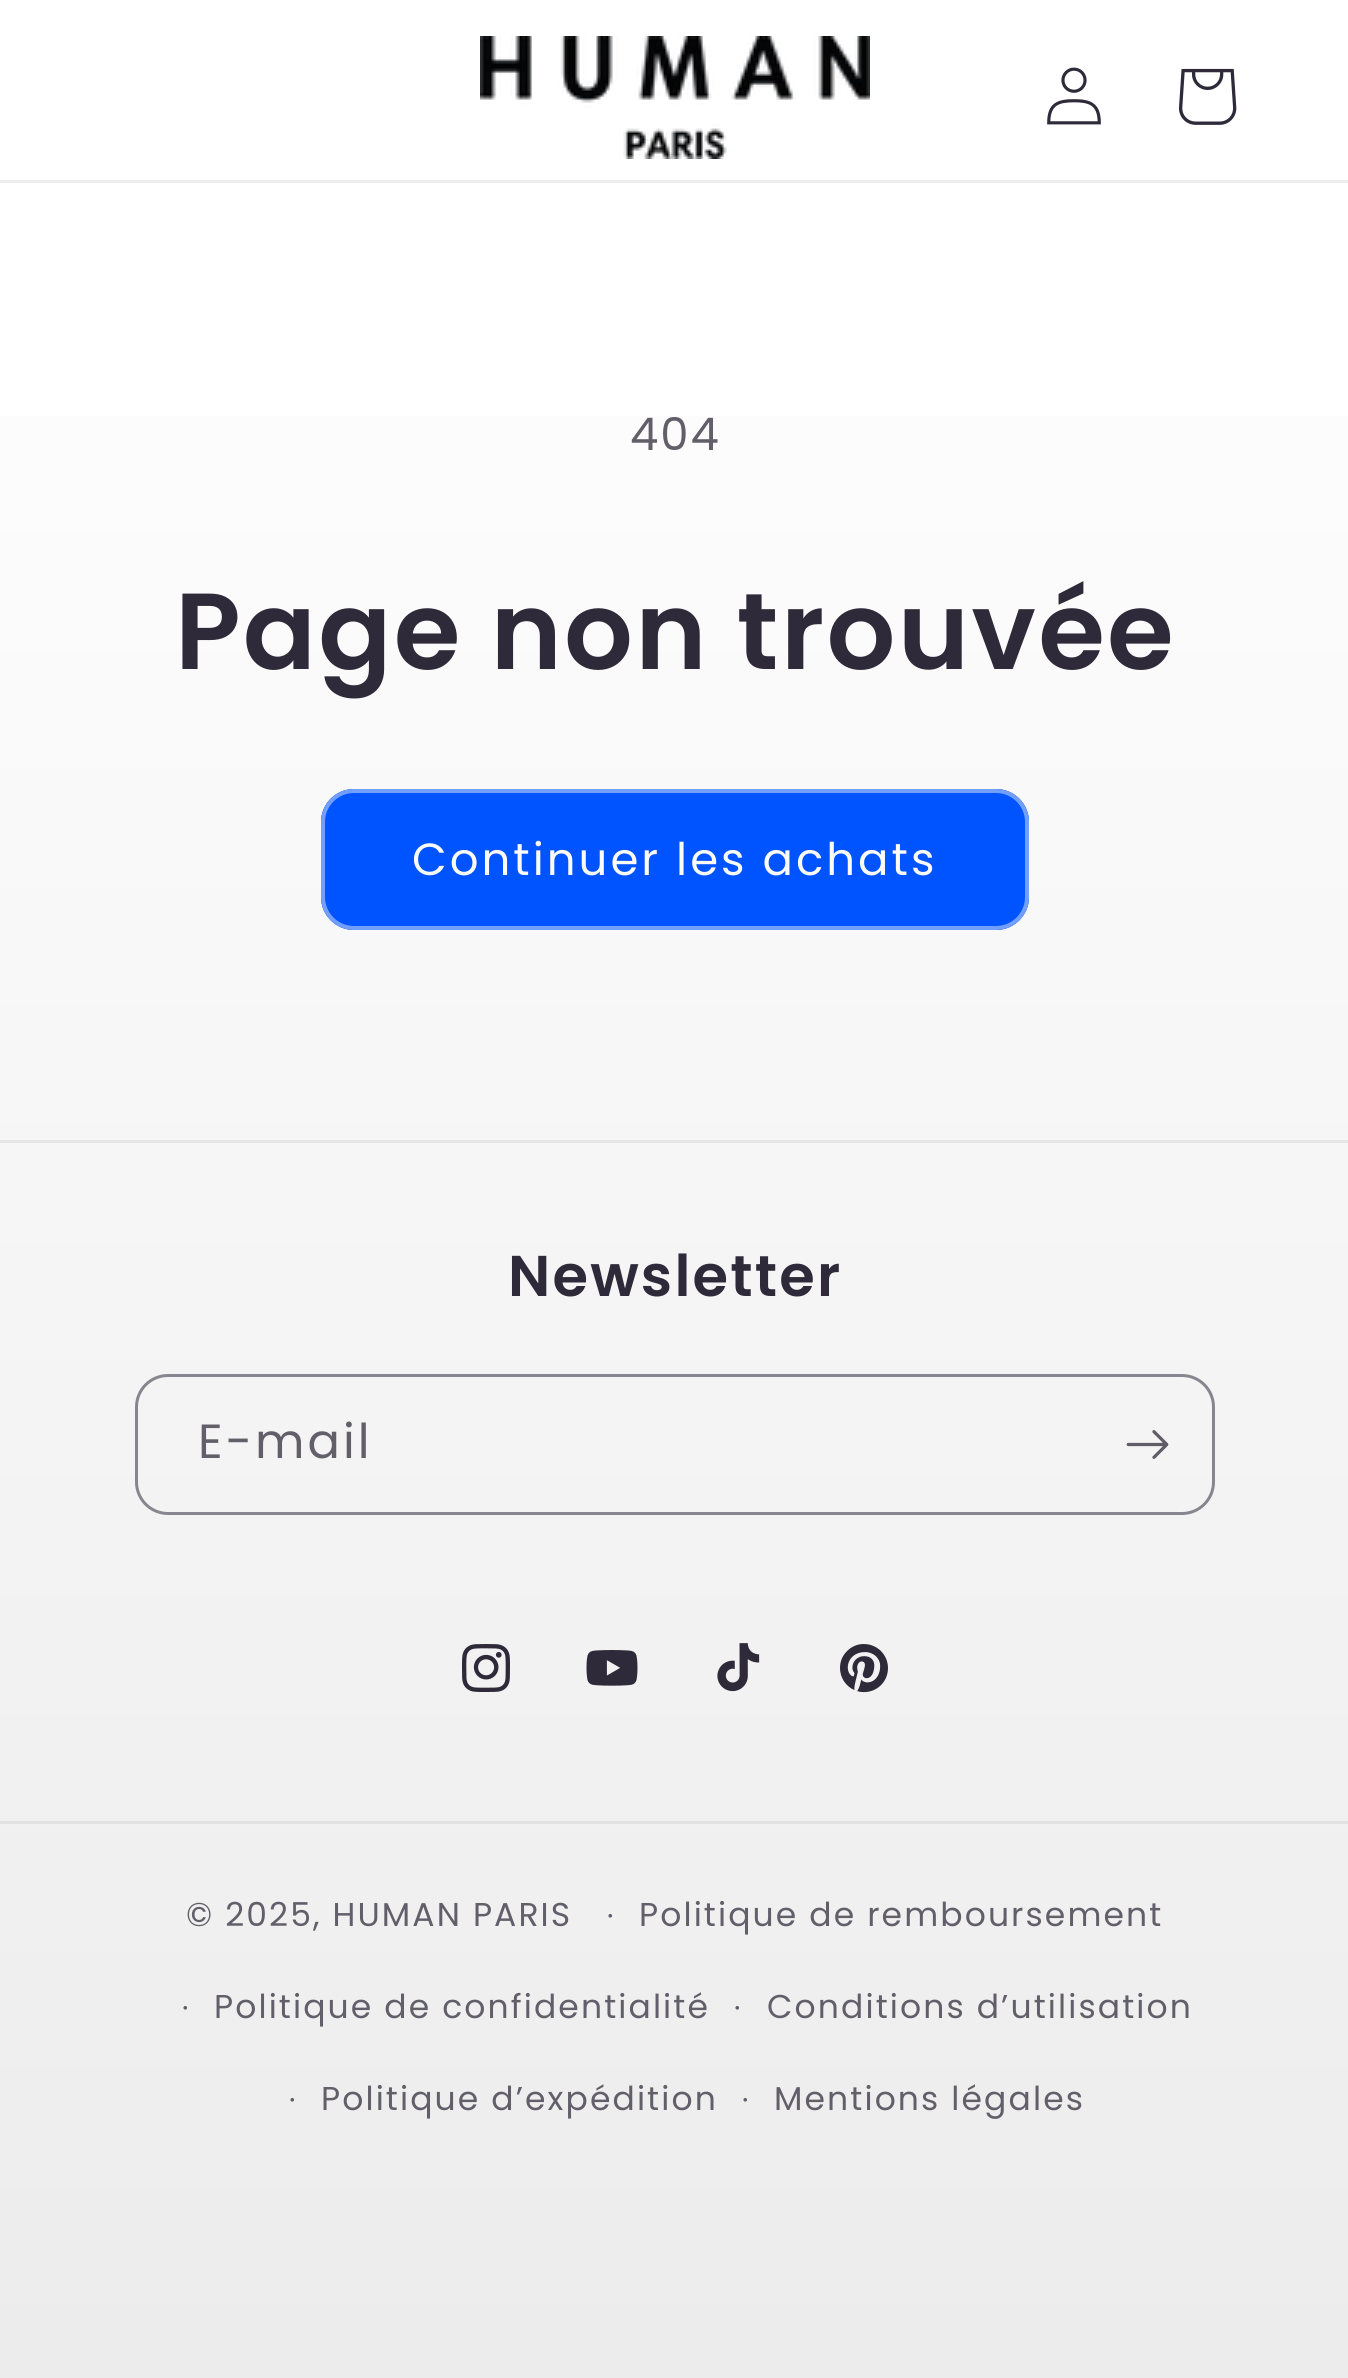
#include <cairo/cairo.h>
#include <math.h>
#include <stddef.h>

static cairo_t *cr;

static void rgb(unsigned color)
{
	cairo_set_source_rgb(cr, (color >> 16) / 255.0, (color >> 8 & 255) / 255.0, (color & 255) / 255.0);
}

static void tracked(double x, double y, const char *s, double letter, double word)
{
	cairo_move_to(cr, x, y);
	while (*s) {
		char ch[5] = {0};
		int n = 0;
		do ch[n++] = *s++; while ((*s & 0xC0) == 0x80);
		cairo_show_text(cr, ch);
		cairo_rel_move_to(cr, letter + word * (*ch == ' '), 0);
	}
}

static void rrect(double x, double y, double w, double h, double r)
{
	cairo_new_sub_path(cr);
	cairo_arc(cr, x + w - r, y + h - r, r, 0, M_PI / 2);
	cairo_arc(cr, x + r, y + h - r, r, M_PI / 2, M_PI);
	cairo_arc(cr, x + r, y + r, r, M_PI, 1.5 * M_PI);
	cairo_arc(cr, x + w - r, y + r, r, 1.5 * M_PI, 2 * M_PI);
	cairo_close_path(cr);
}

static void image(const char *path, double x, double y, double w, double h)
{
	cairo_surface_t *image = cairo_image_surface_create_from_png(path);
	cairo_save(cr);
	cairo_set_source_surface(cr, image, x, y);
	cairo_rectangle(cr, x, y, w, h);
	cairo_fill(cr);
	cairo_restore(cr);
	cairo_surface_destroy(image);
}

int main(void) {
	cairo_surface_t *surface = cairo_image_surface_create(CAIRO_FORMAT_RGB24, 1348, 2378);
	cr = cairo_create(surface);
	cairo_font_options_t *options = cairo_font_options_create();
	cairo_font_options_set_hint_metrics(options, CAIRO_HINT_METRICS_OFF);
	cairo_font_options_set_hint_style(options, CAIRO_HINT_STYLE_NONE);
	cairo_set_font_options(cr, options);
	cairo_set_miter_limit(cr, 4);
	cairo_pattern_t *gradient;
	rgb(0xffffff);
	cairo_paint(cr);
	gradient = cairo_pattern_create_linear(675, 0, 675, 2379);
	cairo_pattern_add_color_stop_rgba(gradient, 0.05, 1, 1, 1, 1);
	cairo_pattern_add_color_stop_rgba(gradient, 1, 0.925, 0.925, 0.925, 1);
	cairo_set_source(cr, gradient);
	cairo_pattern_destroy(gradient);
	cairo_rectangle(cr, 0, 416, 1348, 1962);
	cairo_fill(cr);
	rgb(0xededee);
	cairo_rectangle(cr, 0, 180, 1348, 3);
	cairo_fill(cr);
	image("img/1.png", 480, 36, 390, 123);
	image("img/2.png", 1047, 67, 54, 58);
	image("img/3.png", 1179, 68, 58, 57);
	rgb(0x0054ff);
	rrect(321, 789, 708, 141, 33);
	cairo_fill(cr);
	rrect(322.5, 790.5, 705, 138, 31.5);
	cairo_set_line_width(cr, 3);
	cairo_stroke(cr);
	rrect(323, 791, 704, 137, 31);
	cairo_set_source_rgba(cr, 0.992, 0.984, 0.969, 0.45);
	cairo_set_line_width(cr, 4);
	cairo_stroke(cr);
	rgb(0xe6e6e7);
	cairo_rectangle(cr, 0, 1140, 1348, 3);
	cairo_fill(cr);
	rrect(136.5, 1375.5, 1077, 138, 31.5);
	rgb(0x87858d);
	cairo_set_line_width(cr, 3);
	cairo_stroke(cr);
	image("img/4.png", 1126, 1430, 43, 29);
	image("img/5.png", 462, 1644, 48, 48);
	image("img/6.png", 586, 1650, 52, 36);
	image("img/7.png", 717, 1643, 43, 49);
	image("img/8.png", 840, 1644, 48, 49);
	rgb(0xe1e1e2);
	cairo_rectangle(cr, 0, 1821, 1348, 3);
	cairo_fill(cr);
	cairo_select_font_face(cr, "Poppins", CAIRO_FONT_SLANT_NORMAL, CAIRO_FONT_WEIGHT_NORMAL);
	cairo_set_font_size(cr, 45);
	rgb(0x625f6a);
	tracked(630, 450, "404", 2, 0);
	cairo_select_font_face(cr, "Poppins SemiBold", CAIRO_FONT_SLANT_NORMAL, CAIRO_FONT_WEIGHT_NORMAL);
	cairo_set_font_size(cr, 108);
	rgb(0x2e2a39);
	tracked(175, 669, "Page non trouvée", 2.2, 0);
	cairo_select_font_face(cr, "Poppins", CAIRO_FONT_SLANT_NORMAL, CAIRO_FONT_WEIGHT_NORMAL);
	cairo_set_font_size(cr, 45);
	rgb(0xfdfbf7);
	tracked(412, 875, "Continuer les achats", 3, 0);
	cairo_select_font_face(cr, "Poppins SemiBold", CAIRO_FONT_SLANT_NORMAL, CAIRO_FONT_WEIGHT_NORMAL);
	cairo_set_font_size(cr, 57.5);
	rgb(0x2e2a39);
	tracked(508, 1296, "Newsletter", 2.2, 0);
	cairo_select_font_face(cr, "Poppins", CAIRO_FONT_SLANT_NORMAL, CAIRO_FONT_WEIGHT_NORMAL);
	cairo_set_font_size(cr, 48);
	rgb(0x625f6a);
	tracked(198, 1458, "E-mail", 3, 0);
	cairo_set_font_size(cr, 30);
	tracked(607, 1926, "·", 2.1, 0);
	cairo_set_font_size(cr, 33);
	tracked(639, 1926, "Politique de remboursement", 2.1, 0);
	cairo_set_font_size(cr, 30);
	tracked(182, 2018, "·", 2.1, 0);
	cairo_set_font_size(cr, 33);
	tracked(214, 2018, "Politique de confidentialité", 2.1, 0);
	cairo_set_font_size(cr, 30);
	tracked(734, 2018, "·", 2.1, 0);
	cairo_set_font_size(cr, 33);
	tracked(767, 2018, "Conditions d’utilisation", 2.1, 0);
	cairo_set_font_size(cr, 30);
	tracked(289, 2110, "·", 2.1, 0);
	cairo_set_font_size(cr, 33);
	tracked(321, 2110, "Politique d’expédition", 2.1, 0);
	cairo_set_font_size(cr, 30);
	tracked(742, 2110, "·", 2.1, 0);
	cairo_set_font_size(cr, 33);
	tracked(774, 2110, "Mentions légales", 2.1, 0);
	tracked(186, 1926, "© 2025, HUMAN PARIS", 2.1, 0);
	cairo_surface_write_to_png(surface, "page.png");
	cairo_font_options_destroy(options);
	cairo_destroy(cr);
	cairo_surface_destroy(surface);
	return 0;
}
